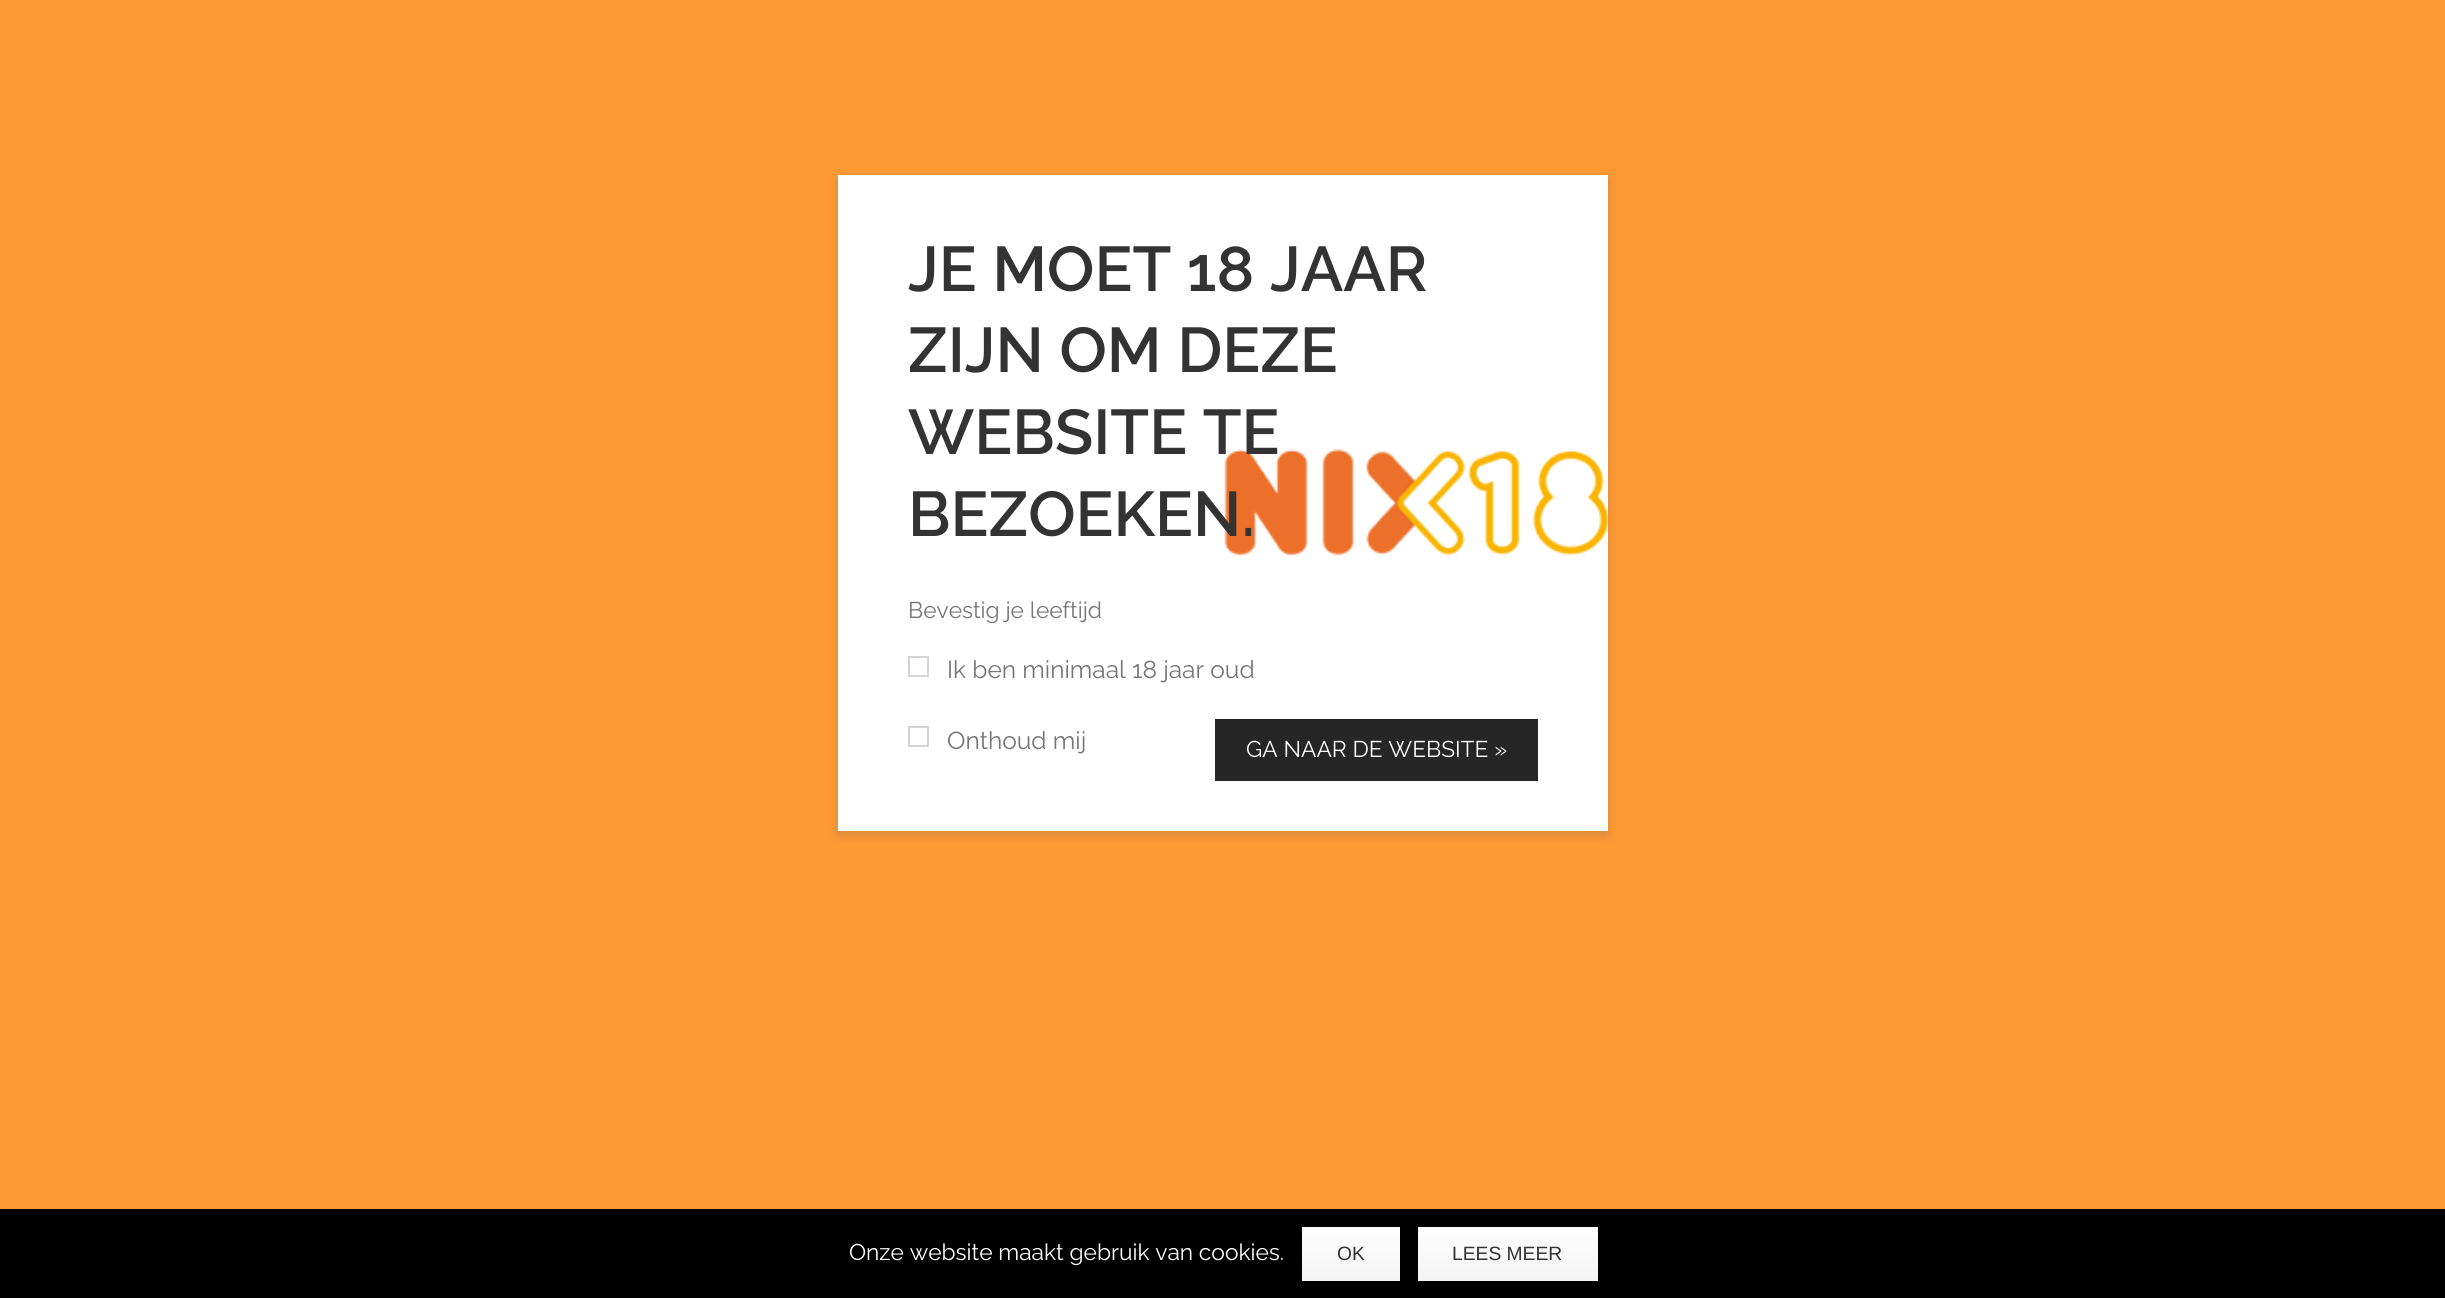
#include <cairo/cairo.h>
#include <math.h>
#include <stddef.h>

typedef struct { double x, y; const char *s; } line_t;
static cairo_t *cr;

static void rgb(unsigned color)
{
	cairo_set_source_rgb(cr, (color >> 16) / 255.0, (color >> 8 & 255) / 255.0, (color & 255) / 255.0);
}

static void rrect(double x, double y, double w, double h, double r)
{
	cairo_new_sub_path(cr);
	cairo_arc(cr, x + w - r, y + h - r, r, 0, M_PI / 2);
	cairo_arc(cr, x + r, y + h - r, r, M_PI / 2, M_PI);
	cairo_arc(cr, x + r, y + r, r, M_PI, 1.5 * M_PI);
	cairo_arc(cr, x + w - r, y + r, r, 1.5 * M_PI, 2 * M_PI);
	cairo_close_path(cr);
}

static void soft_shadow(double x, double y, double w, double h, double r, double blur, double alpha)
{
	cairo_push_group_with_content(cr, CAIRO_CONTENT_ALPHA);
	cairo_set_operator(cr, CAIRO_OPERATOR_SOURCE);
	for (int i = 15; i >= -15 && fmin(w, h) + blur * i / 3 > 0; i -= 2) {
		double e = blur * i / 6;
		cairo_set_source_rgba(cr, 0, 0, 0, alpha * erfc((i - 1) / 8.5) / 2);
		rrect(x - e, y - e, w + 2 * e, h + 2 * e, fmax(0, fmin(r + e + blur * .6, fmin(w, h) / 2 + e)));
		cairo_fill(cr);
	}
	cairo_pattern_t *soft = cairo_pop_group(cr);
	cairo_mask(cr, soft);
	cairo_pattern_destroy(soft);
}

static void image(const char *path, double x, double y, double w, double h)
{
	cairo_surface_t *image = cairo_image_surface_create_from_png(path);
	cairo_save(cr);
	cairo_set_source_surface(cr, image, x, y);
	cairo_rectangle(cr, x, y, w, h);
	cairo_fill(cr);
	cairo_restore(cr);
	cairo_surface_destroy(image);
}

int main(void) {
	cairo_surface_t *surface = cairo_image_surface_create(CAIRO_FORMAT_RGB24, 2445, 1298);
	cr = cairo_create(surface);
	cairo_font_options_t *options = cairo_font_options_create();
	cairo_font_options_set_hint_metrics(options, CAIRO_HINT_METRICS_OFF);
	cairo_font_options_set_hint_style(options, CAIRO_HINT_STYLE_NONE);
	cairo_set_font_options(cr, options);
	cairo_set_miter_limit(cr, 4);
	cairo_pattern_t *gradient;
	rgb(0xff9933);
	cairo_paint(cr);
	rgb(0x646464);
	soft_shadow(838, 179, 770, 656, 0, 5, 0.3);
	rgb(0xffffff);
	cairo_rectangle(cr, 838, 175, 770, 656);
	cairo_fill(cr);
	image("img/1.png", 1224, 449, 385, 107);
	cairo_rectangle(cr, 909, 657, 19, 19);
	rgb(0xd5d5d5);
	cairo_stroke(cr);
	cairo_rectangle(cr, 909, 727, 19, 19);
	cairo_stroke(cr);
	rgb(0x262626);
	cairo_rectangle(cr, 1215, 719, 323, 62);
	cairo_fill(cr);
	rgb(0x000000);
	cairo_rectangle(cr, 0, 1209, 2445, 89);
	cairo_fill(cr);
	gradient = cairo_pattern_create_linear(1351, 1227, 1351, 1281);
	cairo_pattern_add_color_stop_rgba(gradient, 0, 0.996, 0.996, 0.996, 1);
	cairo_pattern_add_color_stop_rgba(gradient, 1, 0.957, 0.957, 0.957, 1);
	cairo_set_source(cr, gradient);
	cairo_pattern_destroy(gradient);
	cairo_rectangle(cr, 1302, 1227, 98, 54);
	cairo_fill(cr);
	gradient = cairo_pattern_create_linear(1508, 1227, 1508, 1281);
	cairo_pattern_add_color_stop_rgba(gradient, 0, 0.996, 0.996, 0.996, 1);
	cairo_pattern_add_color_stop_rgba(gradient, 1, 0.957, 0.957, 0.957, 1);
	cairo_set_source(cr, gradient);
	cairo_pattern_destroy(gradient);
	cairo_rectangle(cr, 1418, 1227, 180, 54);
	cairo_fill(cr);
	cairo_select_font_face(cr, "Raleway SemiBold", CAIRO_FONT_SLANT_NORMAL, CAIRO_FONT_WEIGHT_NORMAL);
	cairo_set_font_size(cr, 63);
	rgb(0x333333);
	{
		static const line_t items[] = {
			{908, 291, "JE MOET 18 JAAR"},
			{908, 372, "ZIJN OM DEZE"},
			{908, 454, "WEBSITE TE"},
			{908, 536, "BEZOEKEN."},
		};
		for (size_t i = 0; i < sizeof items / sizeof *items; i++) {
			cairo_move_to(cr, items[i].x, items[i].y);
			cairo_show_text(cr, items[i].s);
		}
	}
	cairo_select_font_face(cr, "Raleway", CAIRO_FONT_SLANT_NORMAL, CAIRO_FONT_WEIGHT_NORMAL);
	cairo_set_font_size(cr, 22.75);
	rgb(0x767676);
	cairo_move_to(cr, 908, 618);
	cairo_show_text(cr, "Bevestig je leeftijd");
	cairo_set_font_size(cr, 24.5);
	cairo_move_to(cr, 947, 678);
	cairo_show_text(cr, "Ik ben minimaal 18 jaar oud");
	cairo_move_to(cr, 947, 749);
	cairo_show_text(cr, "Onthoud mij");
	cairo_set_font_size(cr, 22.75);
	rgb(0xffffff);
	cairo_move_to(cr, 1246, 757);
	cairo_show_text(cr, "GA NAAR DE WEBSITE »");
	cairo_move_to(cr, 849, 1260);
	cairo_show_text(cr, "Onze website maakt gebruik van cookies.");
	cairo_select_font_face(cr, "Liberation Sans", CAIRO_FONT_SLANT_NORMAL, CAIRO_FONT_WEIGHT_NORMAL);
	cairo_set_font_size(cr, 19.25);
	rgb(0x333333);
	cairo_move_to(cr, 1337, 1260);
	cairo_show_text(cr, "OK");
	cairo_move_to(cr, 1452, 1260);
	cairo_show_text(cr, "LEES MEER");
	cairo_surface_write_to_png(surface, "page.png");
	cairo_font_options_destroy(options);
	cairo_destroy(cr);
	cairo_surface_destroy(surface);
	return 0;
}
